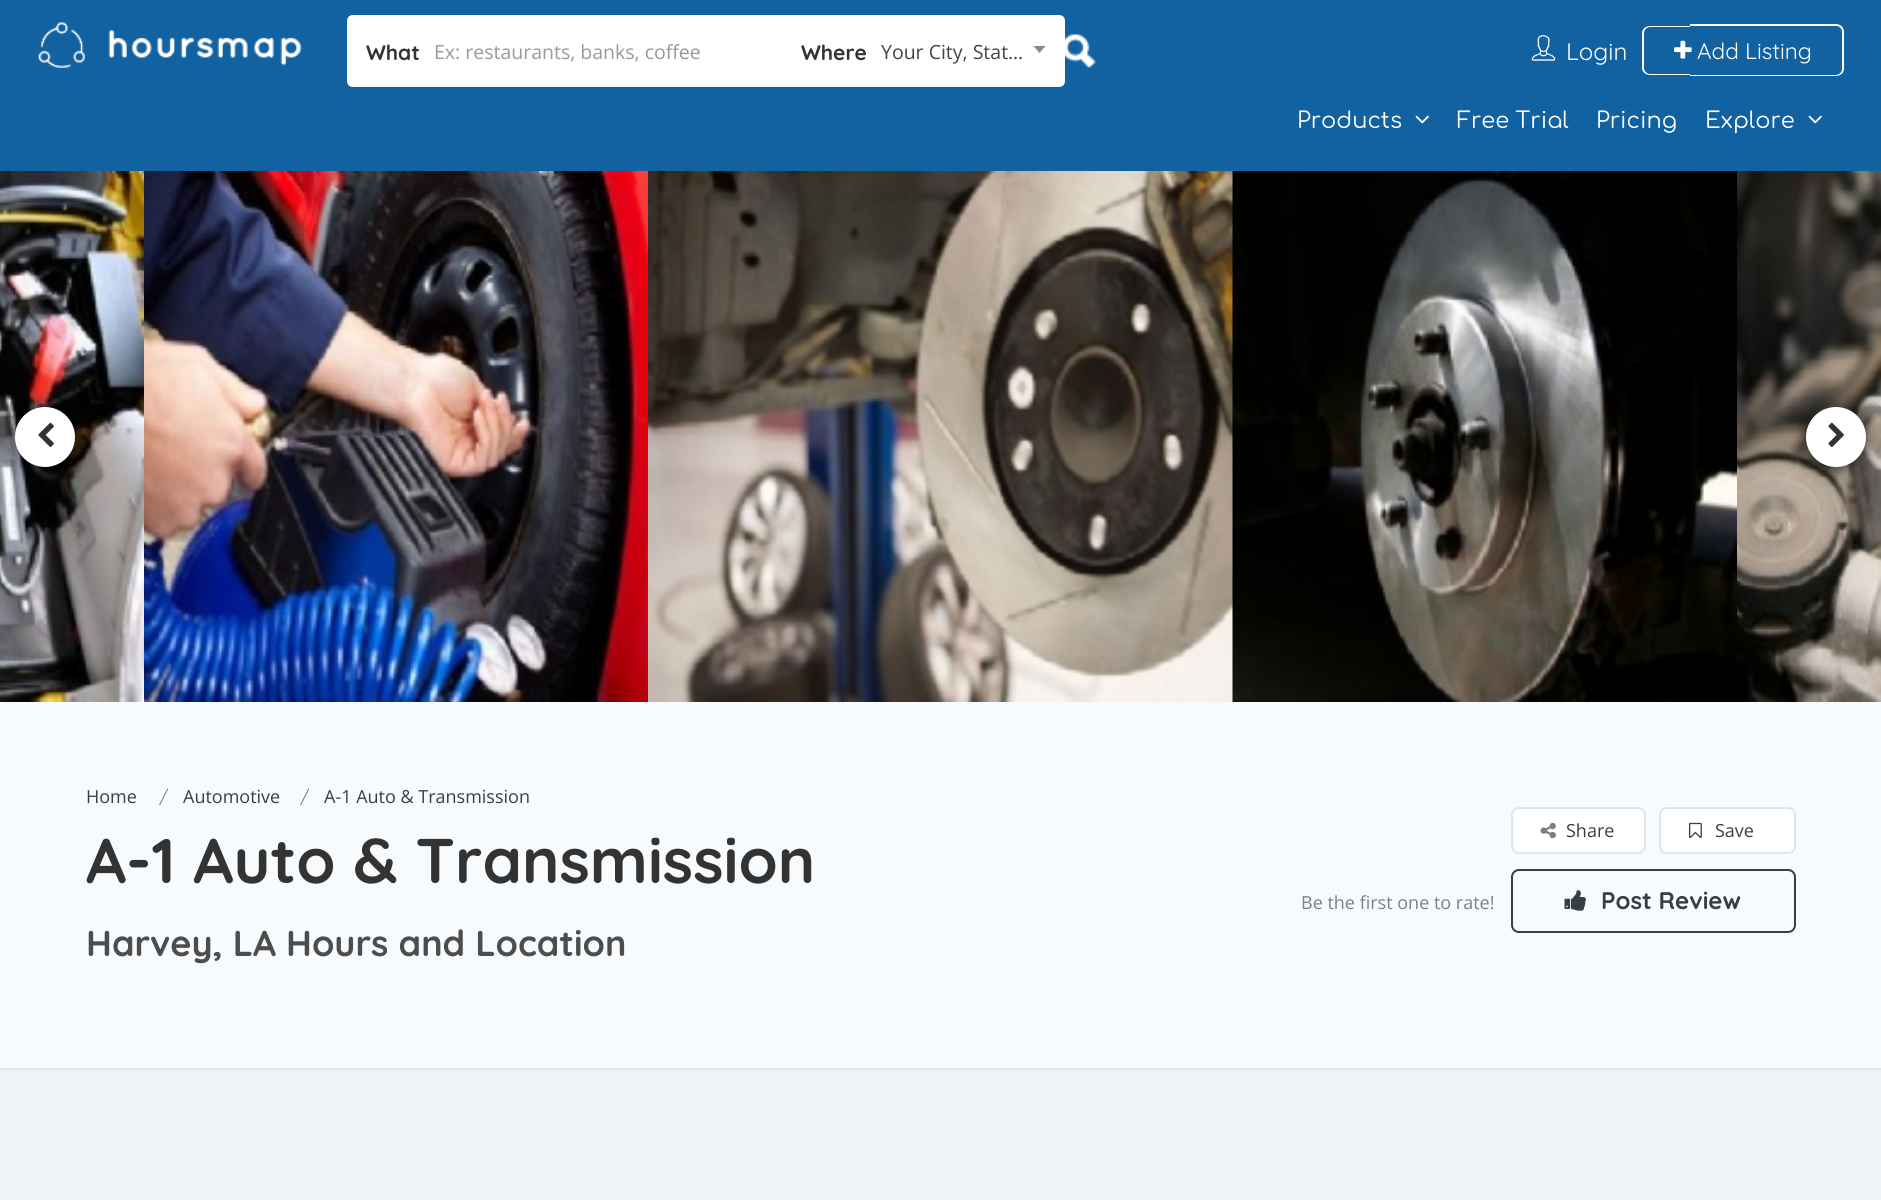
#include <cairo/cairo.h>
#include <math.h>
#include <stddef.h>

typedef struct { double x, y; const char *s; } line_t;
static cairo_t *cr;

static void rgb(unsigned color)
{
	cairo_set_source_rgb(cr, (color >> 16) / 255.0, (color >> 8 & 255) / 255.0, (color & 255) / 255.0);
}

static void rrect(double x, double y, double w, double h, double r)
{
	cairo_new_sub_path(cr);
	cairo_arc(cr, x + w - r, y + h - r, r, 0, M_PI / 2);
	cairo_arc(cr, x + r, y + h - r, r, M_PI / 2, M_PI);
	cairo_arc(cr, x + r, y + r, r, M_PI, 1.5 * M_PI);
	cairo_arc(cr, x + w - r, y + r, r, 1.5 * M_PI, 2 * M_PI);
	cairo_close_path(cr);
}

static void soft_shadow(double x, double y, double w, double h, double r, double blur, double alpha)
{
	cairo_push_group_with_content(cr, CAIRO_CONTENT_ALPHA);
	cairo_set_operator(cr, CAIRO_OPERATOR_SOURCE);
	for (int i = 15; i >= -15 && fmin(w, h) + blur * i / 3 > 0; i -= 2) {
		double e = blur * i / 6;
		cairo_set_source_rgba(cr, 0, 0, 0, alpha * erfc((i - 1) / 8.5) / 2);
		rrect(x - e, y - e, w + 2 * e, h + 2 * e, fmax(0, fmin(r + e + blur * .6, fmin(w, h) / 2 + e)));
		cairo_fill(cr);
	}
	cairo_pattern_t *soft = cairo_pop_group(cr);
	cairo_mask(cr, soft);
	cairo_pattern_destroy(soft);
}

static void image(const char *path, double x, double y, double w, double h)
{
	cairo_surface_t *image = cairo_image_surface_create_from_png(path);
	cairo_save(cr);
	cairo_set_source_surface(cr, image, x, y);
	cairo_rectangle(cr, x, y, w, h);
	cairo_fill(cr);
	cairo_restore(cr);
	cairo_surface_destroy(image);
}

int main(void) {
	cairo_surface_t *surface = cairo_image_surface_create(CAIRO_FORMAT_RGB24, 1881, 1200);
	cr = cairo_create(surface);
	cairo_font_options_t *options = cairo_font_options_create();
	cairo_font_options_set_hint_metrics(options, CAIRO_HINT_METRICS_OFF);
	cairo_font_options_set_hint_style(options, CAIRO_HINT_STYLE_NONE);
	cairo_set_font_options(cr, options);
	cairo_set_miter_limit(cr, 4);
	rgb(0xeff3f6);
	cairo_paint(cr);
	rgb(0x1261a0);
	cairo_rectangle(cr, 0, 0, 1881, 171);
	cairo_fill(cr);
	image("img/1.png", 38, 22, 264, 46);
	rgb(0xffffff);
	cairo_new_path(cr);
	cairo_move_to(cr, 353, 16);
	cairo_line_to(cr, 781, 16);
	cairo_line_to(cr, 781, 86);
	cairo_line_to(cr, 353, 86);
	cairo_curve_to(cr, 350, 86, 348, 84, 348, 81);
	cairo_line_to(cr, 348, 21);
	cairo_curve_to(cr, 348, 18, 350, 16, 353, 16);
	cairo_close_path(cr);
	cairo_fill_preserve(cr);
	cairo_stroke(cr);
	cairo_new_path(cr);
	cairo_move_to(cr, 783, 16);
	cairo_line_to(cr, 1059, 16);
	cairo_curve_to(cr, 1062, 16, 1064, 18, 1064, 21);
	cairo_line_to(cr, 1064, 81);
	cairo_curve_to(cr, 1064, 84, 1062, 86, 1059, 86);
	cairo_line_to(cr, 783, 86);
	cairo_close_path(cr);
	cairo_fill_preserve(cr);
	cairo_stroke(cr);
	rgb(0x888888);
	cairo_new_path(cr);
	cairo_move_to(cr, 1033.5, 46);
	cairo_line_to(cr, 1045.5, 46);
	cairo_line_to(cr, 1039.5, 53);
	cairo_close_path(cr);
	cairo_fill(cr);
	image("img/2.png", 1065, 34, 31, 34);
	image("img/3.png", 1531, 35, 25, 26);
	rgb(0xffffff);
	cairo_set_fill_rule(cr, CAIRO_FILL_RULE_EVEN_ODD);
	cairo_new_path(cr);
	cairo_move_to(cr, 1650, 26);
	cairo_line_to(cr, 1690, 26);
	cairo_line_to(cr, 1690, 75);
	cairo_line_to(cr, 1650, 75);
	cairo_curve_to(cr, 1646, 75, 1642, 72, 1642, 68);
	cairo_line_to(cr, 1642, 33);
	cairo_curve_to(cr, 1642, 29, 1646, 26, 1650, 26);
	cairo_close_path(cr);
	cairo_move_to(cr, 1650, 27);
	cairo_line_to(cr, 1690, 27);
	cairo_line_to(cr, 1690, 74);
	cairo_line_to(cr, 1650, 74);
	cairo_curve_to(cr, 1647, 74, 1644, 71, 1644, 68);
	cairo_line_to(cr, 1644, 33);
	cairo_curve_to(cr, 1644, 30, 1647, 27, 1650, 27);
	cairo_close_path(cr);
	cairo_fill(cr);
	cairo_new_path(cr);
	cairo_move_to(cr, 1690, 24);
	cairo_line_to(cr, 1836, 24);
	cairo_curve_to(cr, 1840, 24, 1844, 27, 1844, 32);
	cairo_line_to(cr, 1844, 69);
	cairo_curve_to(cr, 1844, 73, 1840, 76, 1836, 76);
	cairo_line_to(cr, 1690, 76);
	cairo_close_path(cr);
	cairo_move_to(cr, 1690, 26);
	cairo_line_to(cr, 1836, 26);
	cairo_curve_to(cr, 1839, 26, 1842, 28, 1842, 32);
	cairo_line_to(cr, 1842, 69);
	cairo_curve_to(cr, 1842, 72, 1839, 75, 1836, 75);
	cairo_line_to(cr, 1690, 75);
	cairo_close_path(cr);
	cairo_fill(cr);
	image("img/4.png", 1674, 40, 18, 19);
	image("img/5.png", 1415, 115, 14, 9);
	image("img/5.png", 1808, 115, 14, 9);
	image("img/6.png", 0, 171, 144, 531);
	image("img/7.png", 144, 171, 504, 531);
	image("img/9.png", 1232, 171, 505, 531);
	image("img/8.png", 648, 171, 585, 531);
	image("img/10.png", 1737, 171, 144, 531);
	rgb(0x000000);
	soft_shadow(15, 408, 60, 60, 30, 10.5, 0.66);
	rgb(0xffffff);
	cairo_arc(cr, 45, 437, 30, 0, 2 * M_PI);
	cairo_fill(cr);
	image("img/11.png", 38, 422, 16, 25);
	rgb(0x000000);
	soft_shadow(1806, 408, 60, 60, 30, 10.5, 0.66);
	rgb(0xffffff);
	cairo_arc(cr, 1836, 437, 30, 0, 2 * M_PI);
	cairo_fill(cr);
	image("img/12.png", 1828, 422, 16, 25);
	rgb(0xf7fbfe);
	cairo_rectangle(cr, 0, 702, 1881, 366);
	cairo_fill(cr);
	rgb(0xdbe7ef);
	cairo_rectangle(cr, 0, 1068, 1881, 2);
	cairo_fill(cr);
	rgb(0xffffff);
	rrect(1512, 808, 133, 45, 7);
	cairo_fill_preserve(cr);
	rgb(0xdbe7ef);
	cairo_stroke(cr);
	image("img/13.png", 1540, 822, 16, 17);
	rgb(0xffffff);
	rrect(1660, 808, 135, 45, 7);
	cairo_fill_preserve(cr);
	rgb(0xdbe7ef);
	cairo_stroke(cr);
	image("img/14.png", 1689, 822, 13, 16);
	rrect(1512, 870, 283, 62, 7);
	rgb(0x363f48);
	cairo_stroke(cr);
	image("img/15.png", 1564, 890, 22, 21);
	cairo_select_font_face(cr, "Quicksand", CAIRO_FONT_SLANT_NORMAL, CAIRO_FONT_WEIGHT_BOLD);
	cairo_set_font_size(cr, 21);
	rgb(0x333333);
	cairo_move_to(cr, 366, 60);
	cairo_show_text(cr, "What");
	cairo_select_font_face(cr, "Open Sans", CAIRO_FONT_SLANT_NORMAL, CAIRO_FONT_WEIGHT_NORMAL);
	cairo_set_font_size(cr, 19.5);
	rgb(0x999999);
	cairo_move_to(cr, 434, 59);
	cairo_show_text(cr, "Ex: restaurants, banks, coffee");
	cairo_select_font_face(cr, "Quicksand", CAIRO_FONT_SLANT_NORMAL, CAIRO_FONT_WEIGHT_BOLD);
	cairo_set_font_size(cr, 21);
	rgb(0x333333);
	cairo_move_to(cr, 801, 60);
	cairo_show_text(cr, "Where");
	cairo_select_font_face(cr, "Open Sans", CAIRO_FONT_SLANT_NORMAL, CAIRO_FONT_WEIGHT_NORMAL);
	cairo_set_font_size(cr, 19.5);
	rgb(0x444444);
	cairo_move_to(cr, 881, 59);
	cairo_show_text(cr, "Your City, Stat…");
	cairo_select_font_face(cr, "Quicksand", CAIRO_FONT_SLANT_NORMAL, CAIRO_FONT_WEIGHT_NORMAL);
	cairo_set_font_size(cr, 24);
	rgb(0xffffff);
	cairo_move_to(cr, 1566, 60);
	cairo_show_text(cr, "Login");
	cairo_set_font_size(cr, 22.5);
	cairo_move_to(cr, 1697, 59);
	cairo_show_text(cr, "Add Listing");
	cairo_select_font_face(cr, "Comfortaa", CAIRO_FONT_SLANT_NORMAL, CAIRO_FONT_WEIGHT_NORMAL);
	{
		static const line_t items[] = {
			{1297, 128, "Products"},
			{1457, 128, "Free Trial"},
			{1596, 128, "Pricing"},
			{1705, 128, "Explore"},
		};
		for (size_t i = 0; i < sizeof items / sizeof *items; i++) {
			cairo_move_to(cr, items[i].x, items[i].y);
			cairo_show_text(cr, items[i].s);
		}
	}
	cairo_select_font_face(cr, "Open Sans", CAIRO_FONT_SLANT_NORMAL, CAIRO_FONT_WEIGHT_NORMAL);
	cairo_set_font_size(cr, 18);
	rgb(0x363f48);
	cairo_move_to(cr, 86, 803);
	cairo_show_text(cr, "Home");
	cairo_select_font_face(cr, "Quicksand", CAIRO_FONT_SLANT_NORMAL, CAIRO_FONT_WEIGHT_NORMAL);
	rgb(0x7f7f7f);
	cairo_move_to(cr, 159, 803);
	cairo_show_text(cr, "/");
	cairo_select_font_face(cr, "Open Sans", CAIRO_FONT_SLANT_NORMAL, CAIRO_FONT_WEIGHT_NORMAL);
	rgb(0x363f48);
	cairo_move_to(cr, 183, 803);
	cairo_show_text(cr, "Automotive");
	cairo_select_font_face(cr, "Quicksand", CAIRO_FONT_SLANT_NORMAL, CAIRO_FONT_WEIGHT_NORMAL);
	rgb(0x7f7f7f);
	cairo_move_to(cr, 300, 803);
	cairo_show_text(cr, "/");
	cairo_select_font_face(cr, "Open Sans", CAIRO_FONT_SLANT_NORMAL, CAIRO_FONT_WEIGHT_NORMAL);
	rgb(0x363f48);
	cairo_move_to(cr, 324, 803);
	cairo_show_text(cr, "A-1 Auto & Transmission");
	cairo_select_font_face(cr, "Quicksand", CAIRO_FONT_SLANT_NORMAL, CAIRO_FONT_WEIGHT_BOLD);
	cairo_set_font_size(cr, 63);
	rgb(0x333333);
	cairo_move_to(cr, 86, 883);
	cairo_show_text(cr, "A-1 Auto & Transmission");
	cairo_set_font_size(cr, 36);
	rgb(0x4d4d4d);
	cairo_move_to(cr, 86, 956);
	cairo_show_text(cr, "Harvey, LA Hours and Location");
	cairo_select_font_face(cr, "Open Sans", CAIRO_FONT_SLANT_NORMAL, CAIRO_FONT_WEIGHT_NORMAL);
	cairo_set_font_size(cr, 18);
	rgb(0x363f48);
	cairo_move_to(cr, 1566, 837);
	cairo_show_text(cr, "Share");
	cairo_move_to(cr, 1715, 837);
	cairo_show_text(cr, "Save");
	rgb(0x7f7f7f);
	cairo_move_to(cr, 1301, 909);
	cairo_show_text(cr, "Be the first one to rate!");
	cairo_select_font_face(cr, "Quicksand", CAIRO_FONT_SLANT_NORMAL, CAIRO_FONT_WEIGHT_BOLD);
	cairo_set_font_size(cr, 24);
	rgb(0x363f48);
	cairo_move_to(cr, 1601, 909);
	cairo_show_text(cr, "Post Review");
	cairo_surface_write_to_png(surface, "page.png");
	cairo_font_options_destroy(options);
	cairo_destroy(cr);
	cairo_surface_destroy(surface);
	return 0;
}
